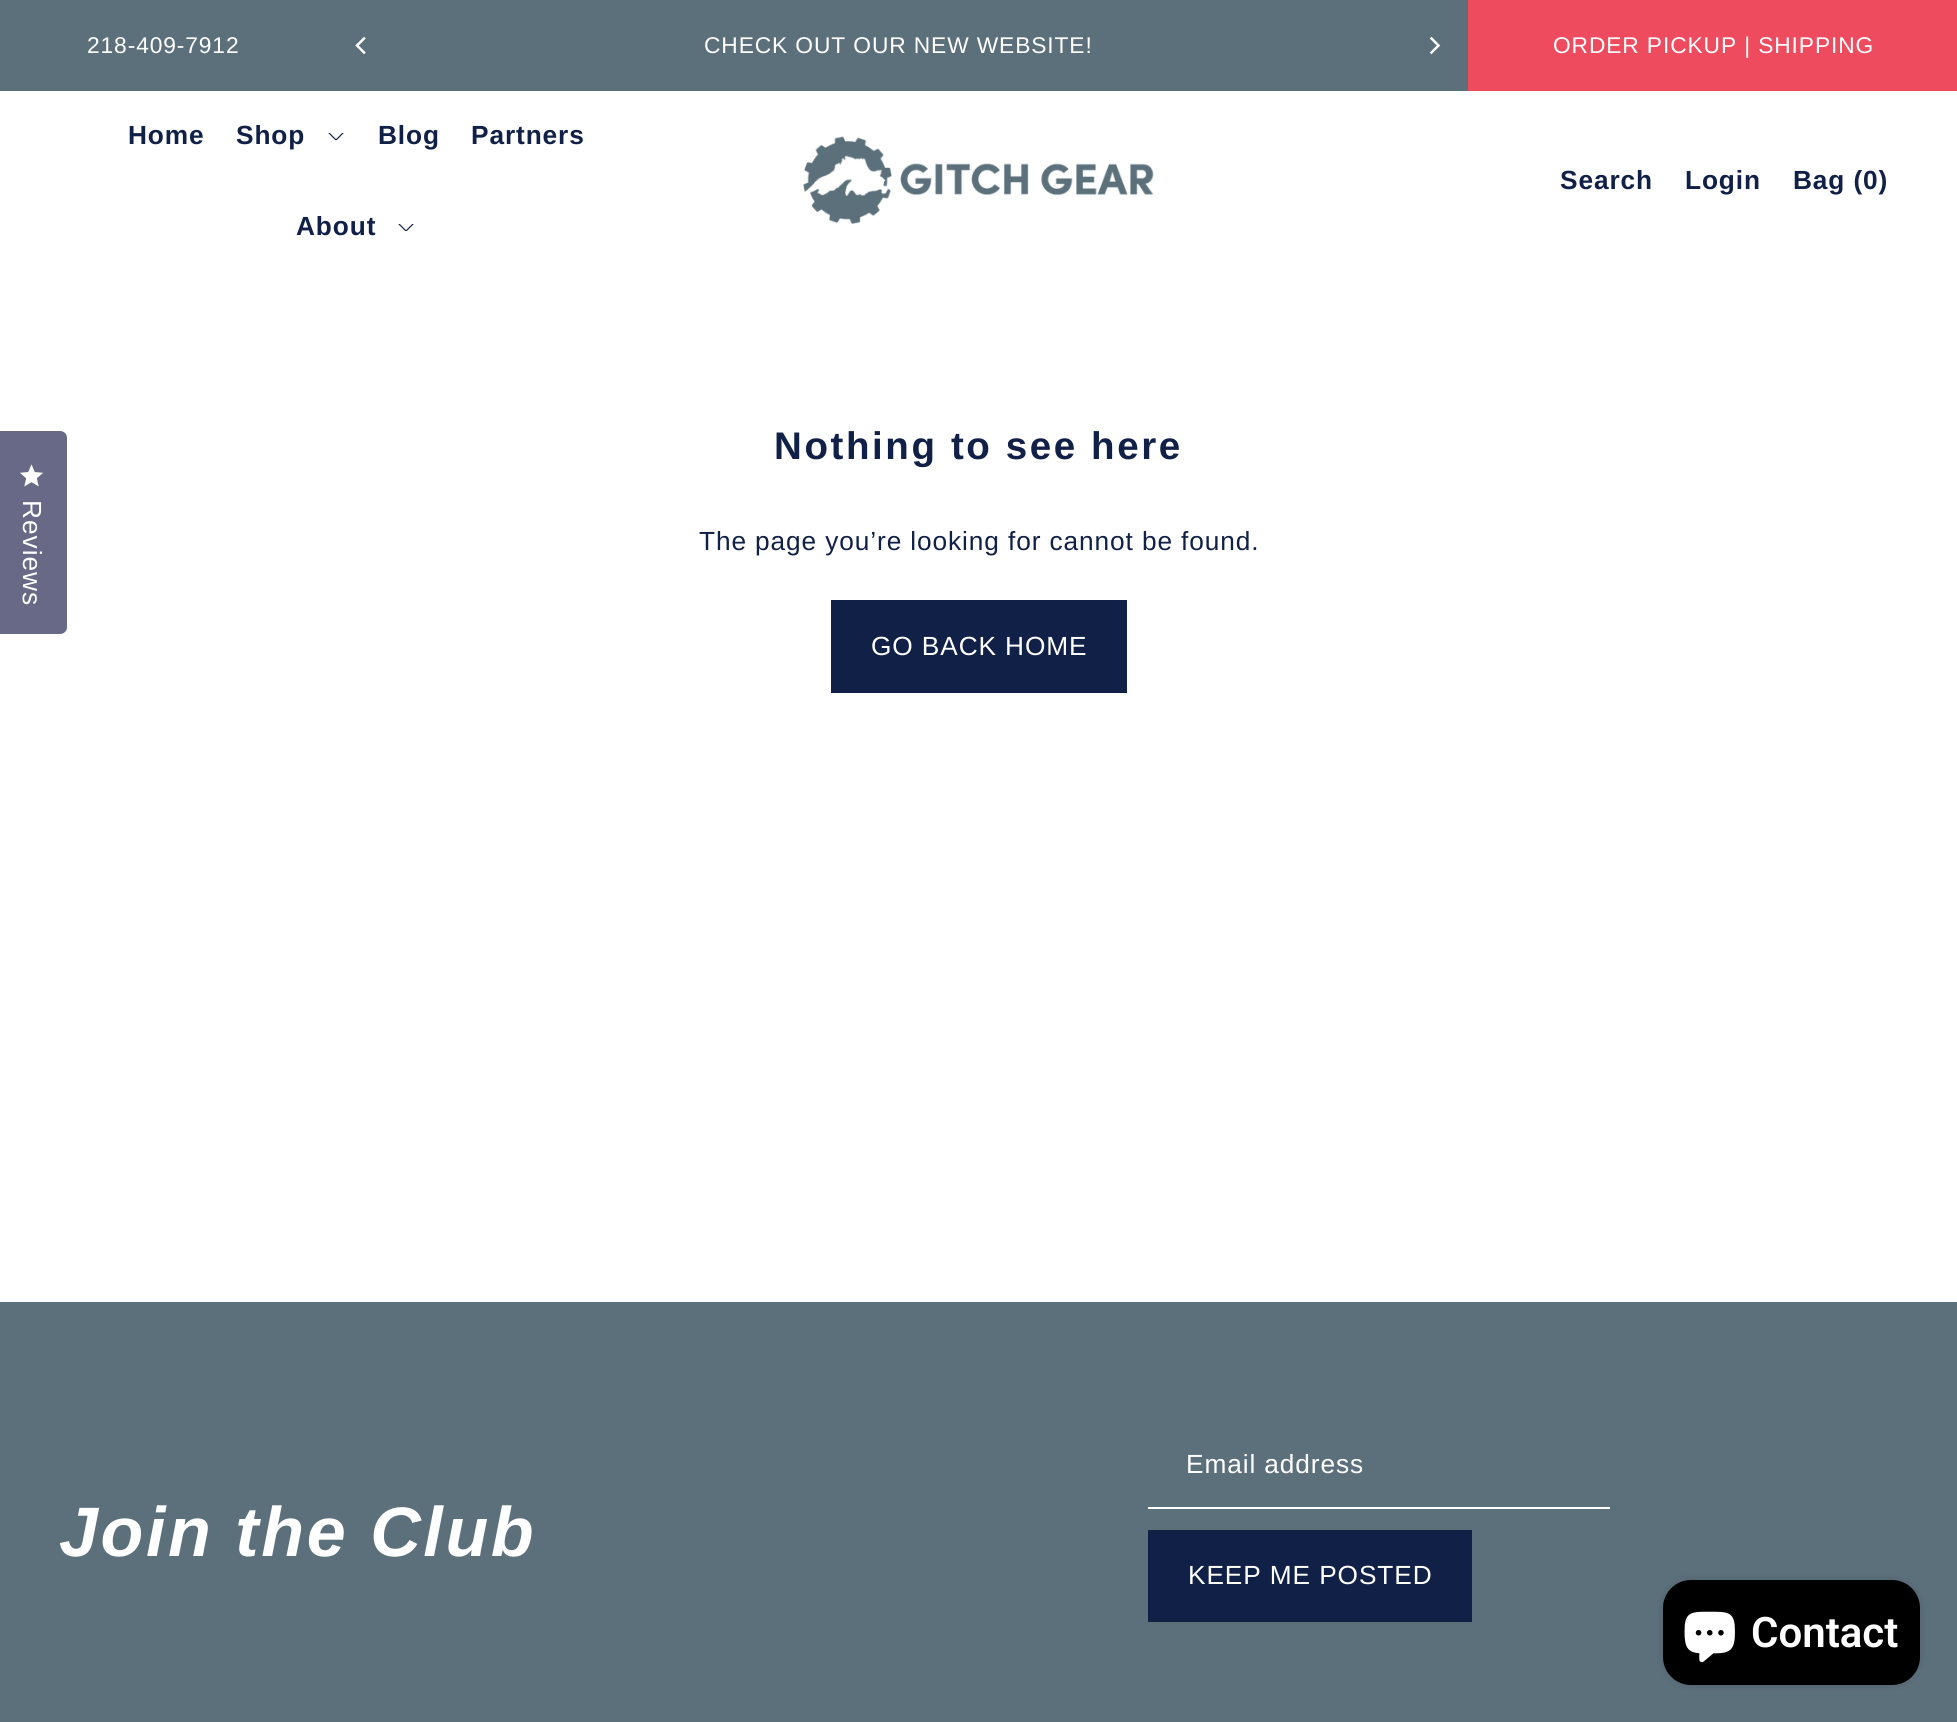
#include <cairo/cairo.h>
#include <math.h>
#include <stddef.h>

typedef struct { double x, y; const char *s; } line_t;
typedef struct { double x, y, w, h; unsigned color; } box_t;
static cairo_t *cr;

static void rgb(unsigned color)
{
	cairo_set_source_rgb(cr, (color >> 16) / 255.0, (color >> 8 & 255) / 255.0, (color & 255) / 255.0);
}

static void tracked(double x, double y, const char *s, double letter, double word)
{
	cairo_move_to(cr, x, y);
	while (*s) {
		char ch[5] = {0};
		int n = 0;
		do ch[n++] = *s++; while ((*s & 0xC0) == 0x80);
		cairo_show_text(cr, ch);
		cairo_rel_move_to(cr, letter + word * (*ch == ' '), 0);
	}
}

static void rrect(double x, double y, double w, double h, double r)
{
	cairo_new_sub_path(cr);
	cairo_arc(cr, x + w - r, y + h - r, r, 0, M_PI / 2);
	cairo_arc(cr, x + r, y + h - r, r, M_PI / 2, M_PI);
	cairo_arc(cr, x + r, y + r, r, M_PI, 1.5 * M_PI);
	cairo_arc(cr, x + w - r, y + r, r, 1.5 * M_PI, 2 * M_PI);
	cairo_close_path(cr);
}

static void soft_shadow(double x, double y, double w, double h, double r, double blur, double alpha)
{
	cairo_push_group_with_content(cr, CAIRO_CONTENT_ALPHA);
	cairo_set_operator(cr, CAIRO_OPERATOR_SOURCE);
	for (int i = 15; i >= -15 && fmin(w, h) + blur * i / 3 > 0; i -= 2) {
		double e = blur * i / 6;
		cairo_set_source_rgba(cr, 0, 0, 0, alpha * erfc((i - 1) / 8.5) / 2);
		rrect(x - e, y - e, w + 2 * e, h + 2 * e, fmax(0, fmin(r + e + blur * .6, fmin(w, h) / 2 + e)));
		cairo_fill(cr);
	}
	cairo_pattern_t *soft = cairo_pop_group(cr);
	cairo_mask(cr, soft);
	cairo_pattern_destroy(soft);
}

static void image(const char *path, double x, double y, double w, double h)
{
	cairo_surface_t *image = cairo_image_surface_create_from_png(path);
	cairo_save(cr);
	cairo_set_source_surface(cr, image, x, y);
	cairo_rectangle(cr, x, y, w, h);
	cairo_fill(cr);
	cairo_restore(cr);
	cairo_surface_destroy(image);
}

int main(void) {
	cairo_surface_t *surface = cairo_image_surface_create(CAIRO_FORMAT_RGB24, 1957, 1722);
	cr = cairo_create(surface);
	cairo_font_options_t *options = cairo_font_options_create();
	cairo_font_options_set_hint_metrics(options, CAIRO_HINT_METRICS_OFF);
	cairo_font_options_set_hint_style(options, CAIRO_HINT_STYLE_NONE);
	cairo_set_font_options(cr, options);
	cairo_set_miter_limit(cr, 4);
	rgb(0xffffff);
	cairo_paint(cr);
	rgb(0x676986);
	cairo_new_path(cr);
	cairo_move_to(cr, -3, 431);
	cairo_line_to(cr, 60, 431);
	cairo_curve_to(cr, 64, 431, 67, 434, 67, 438);
	cairo_line_to(cr, 67, 627);
	cairo_curve_to(cr, 67, 631, 64, 634, 60, 634);
	cairo_line_to(cr, -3, 634);
	cairo_close_path(cr);
	cairo_fill(cr);
	image("img/1.png", 20, 464, 23, 23);
	rgb(0x5c707c);
	cairo_rectangle(cr, 0, 0, 1468, 91);
	cairo_fill(cr);
	image("img/2.png", 355, 36, 11, 19);
	image("img/3.png", 1429, 36, 12, 19);
	rgb(0xef4b5e);
	cairo_rectangle(cr, 1468, 0, 489, 91);
	cairo_fill(cr);
	cairo_save(cr);
	cairo_rectangle(cr, 326, 133, 21, 7);
	cairo_clip(cr);
	cairo_new_path(cr);
	cairo_move_to(cr, 329, 133);
	cairo_line_to(cr, 336, 140);
	cairo_line_to(cr, 343, 133);
	rgb(0x102047);
	cairo_set_line_width(cr, 1.2);
	cairo_set_line_cap(cr, CAIRO_LINE_CAP_ROUND);
	cairo_set_line_join(cr, CAIRO_LINE_JOIN_ROUND);
	cairo_stroke(cr);
	cairo_restore(cr);
	cairo_save(cr);
	cairo_rectangle(cr, 396, 224, 21, 7);
	cairo_clip(cr);
	cairo_new_path(cr);
	cairo_move_to(cr, 399, 224);
	cairo_line_to(cr, 406, 231);
	cairo_line_to(cr, 413, 224);
	rgb(0x102047);
	cairo_set_line_width(cr, 1.2);
	cairo_set_line_cap(cr, CAIRO_LINE_CAP_ROUND);
	cairo_set_line_join(cr, CAIRO_LINE_JOIN_ROUND);
	cairo_stroke(cr);
	cairo_restore(cr);
	image("img/4.png", 803, 136, 351, 88);
	{
		static const box_t items[] = {
			{831, 600, 296, 93, 0x102047},
			{0, 1302, 1957, 420, 0x5c707c},
			{1148, 1507, 462, 2, 0xffffff},
			{1148, 1530, 324, 92, 0x102047},
		};
		for (size_t i = 0; i < sizeof items / sizeof *items; i++) {
			rgb(items[i].color);
			cairo_rectangle(cr, items[i].x, items[i].y, items[i].w, items[i].h);
			cairo_fill(cr);
		}
	}
	rgb(0x000000);
	soft_shadow(1663, 1580, 257, 105, 28, 4.5, 0.15);
	rgb(0x000000);
	rrect(1663, 1580, 257, 105, 28);
	cairo_fill(cr);
	image("img/5.png", 1684, 1611, 51, 52);
	cairo_select_font_face(cr, "Arimo", CAIRO_FONT_SLANT_NORMAL, CAIRO_FONT_WEIGHT_NORMAL);
	cairo_set_font_size(cr, 26.25);
	rgb(0xffffff);
	cairo_save(cr);
	cairo_translate(cr, 23, 500);
	cairo_rotate(cr, 90.1 * M_PI / 180);
	tracked(0, 0, "Reviews", 1, 0);
	cairo_restore(cr);
	cairo_set_font_size(cr, 22.75);
	{
		static const line_t items[] = {
			{87, 53, "218-409-7912"},
			{704, 53, "CHECK OUT OUR NEW WEBSITE!"},
			{1553, 53, "ORDER PICKUP | SHIPPING"},
		};
		for (size_t i = 0; i < sizeof items / sizeof *items; i++) {
			tracked(items[i].x, items[i].y, items[i].s, 0.9, 0);
		}
	}
	cairo_select_font_face(cr, "Arimo", CAIRO_FONT_SLANT_NORMAL, CAIRO_FONT_WEIGHT_BOLD);
	cairo_set_font_size(cr, 26.25);
	rgb(0x102047);
	{
		static const line_t items[] = {
			{128, 144, "Home"},
			{236, 144, "Shop"},
			{378, 144, "Blog"},
			{471, 144, "Partners"},
			{296, 235, "About"},
			{1560, 189, "Search"},
			{1685, 189, "Login"},
			{1793, 189, "Bag (0)"},
		};
		for (size_t i = 0; i < sizeof items / sizeof *items; i++) {
			tracked(items[i].x, items[i].y, items[i].s, 0.9, 0);
		}
	}
	cairo_set_font_size(cr, 38.5);
	tracked(774, 459, "Nothing to see here", 2.6, 0);
	cairo_select_font_face(cr, "Arimo", CAIRO_FONT_SLANT_NORMAL, CAIRO_FONT_WEIGHT_NORMAL);
	cairo_set_font_size(cr, 26.25);
	tracked(699, 550, "The page you’re looking for cannot be found.", 0.9, 0);
	rgb(0xffffff);
	tracked(871, 655, "GO BACK HOME", 0.9, 0);
	cairo_select_font_face(cr, "Arimo", CAIRO_FONT_SLANT_ITALIC, CAIRO_FONT_WEIGHT_BOLD);
	cairo_set_font_size(cr, 70);
	tracked(59, 1556, "Join the Club", 2.6, 0);
	cairo_select_font_face(cr, "Arimo", CAIRO_FONT_SLANT_NORMAL, CAIRO_FONT_WEIGHT_NORMAL);
	cairo_set_font_size(cr, 26.25);
	tracked(1186, 1473, "Email address", 0.9, 0);
	tracked(1188, 1584, "KEEP ME POSTED", 0.9, 0);
	cairo_select_font_face(cr, "Roboto SemiBold", CAIRO_FONT_SLANT_NORMAL, CAIRO_FONT_WEIGHT_NORMAL);
	cairo_set_font_size(cr, 42);
	cairo_move_to(cr, 1751, 1647);
	cairo_show_text(cr, "Contact");
	cairo_surface_write_to_png(surface, "page.png");
	cairo_font_options_destroy(options);
	cairo_destroy(cr);
	cairo_surface_destroy(surface);
	return 0;
}
